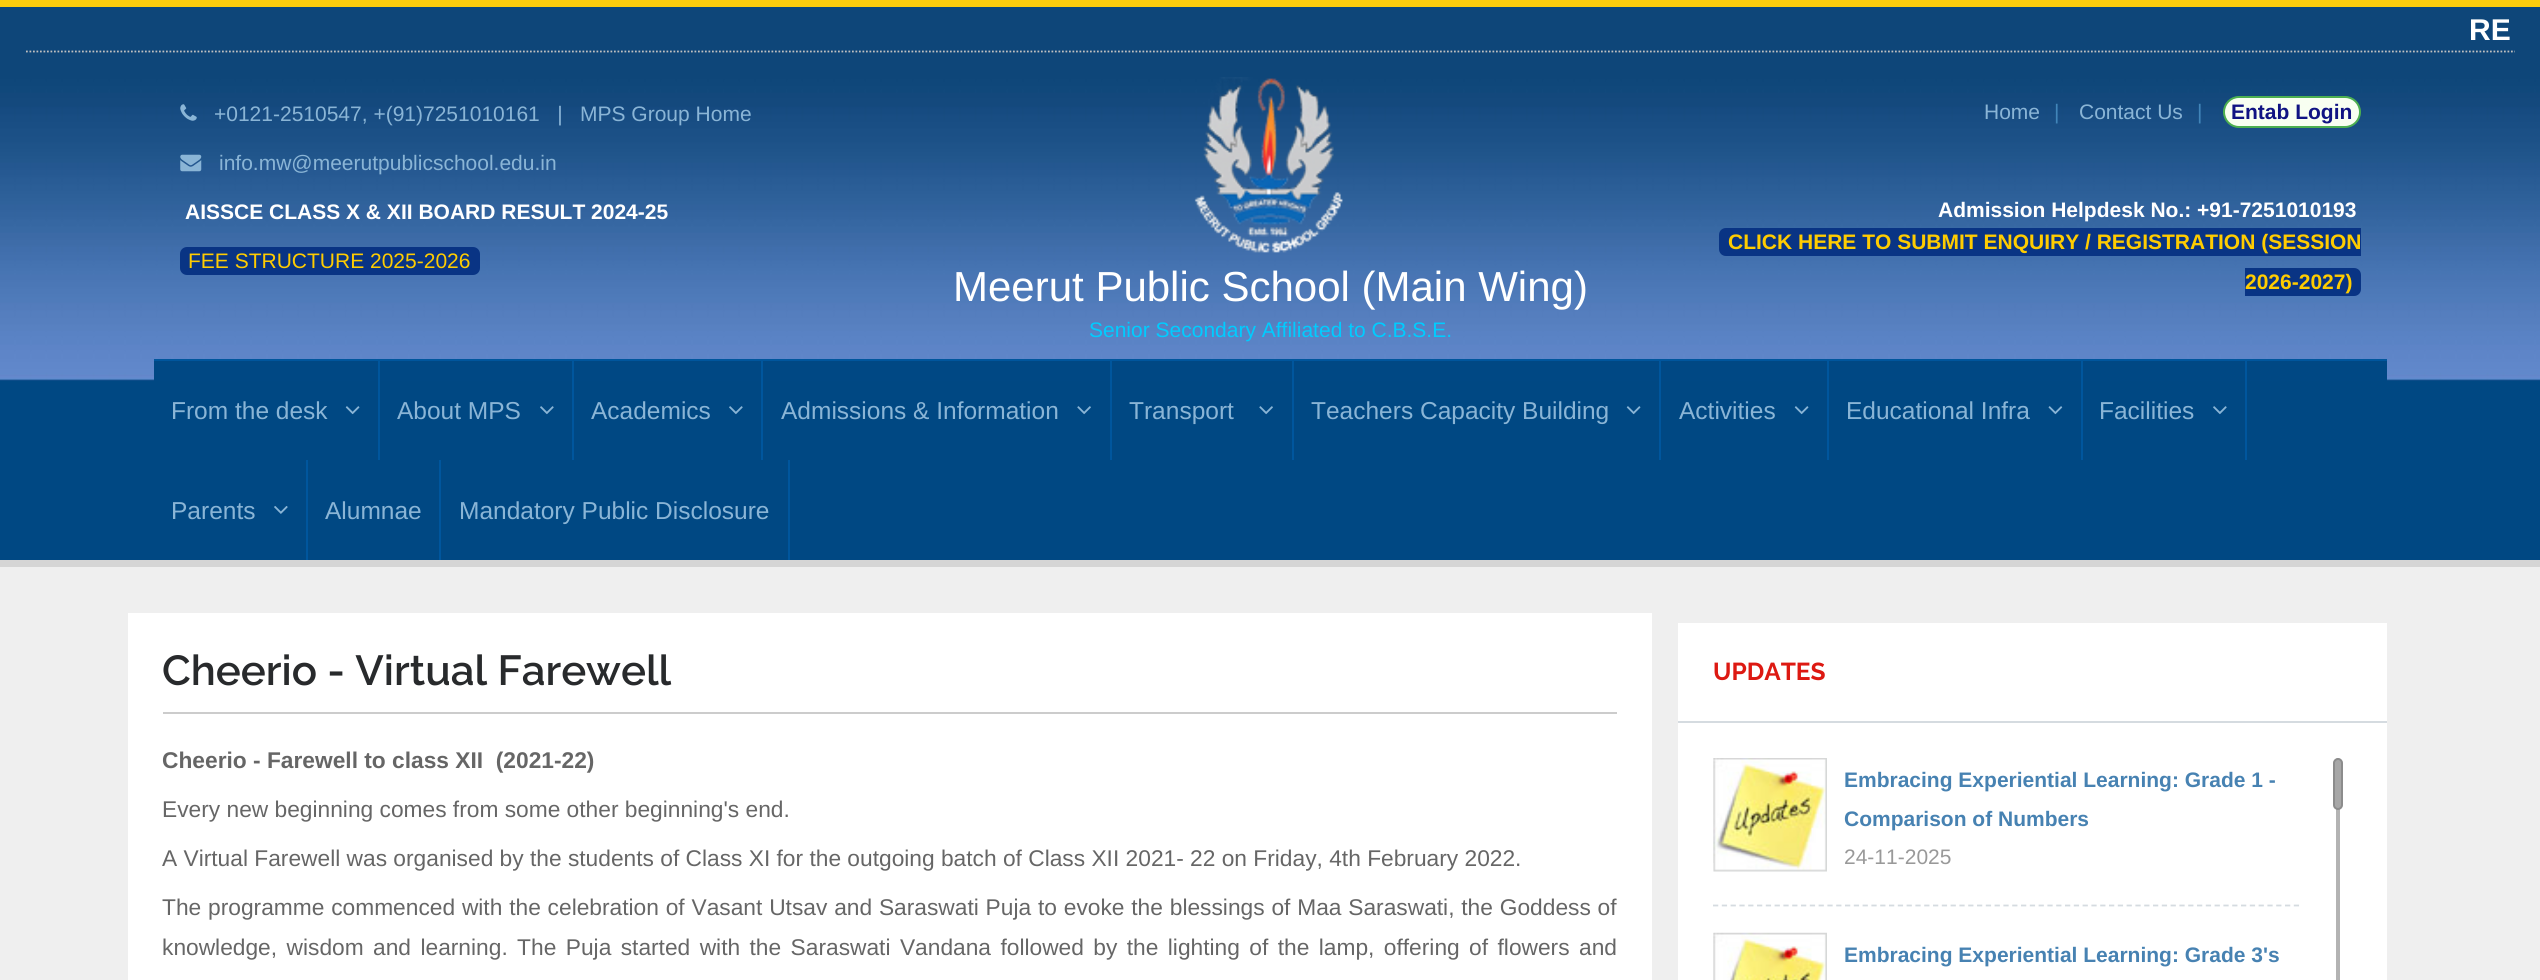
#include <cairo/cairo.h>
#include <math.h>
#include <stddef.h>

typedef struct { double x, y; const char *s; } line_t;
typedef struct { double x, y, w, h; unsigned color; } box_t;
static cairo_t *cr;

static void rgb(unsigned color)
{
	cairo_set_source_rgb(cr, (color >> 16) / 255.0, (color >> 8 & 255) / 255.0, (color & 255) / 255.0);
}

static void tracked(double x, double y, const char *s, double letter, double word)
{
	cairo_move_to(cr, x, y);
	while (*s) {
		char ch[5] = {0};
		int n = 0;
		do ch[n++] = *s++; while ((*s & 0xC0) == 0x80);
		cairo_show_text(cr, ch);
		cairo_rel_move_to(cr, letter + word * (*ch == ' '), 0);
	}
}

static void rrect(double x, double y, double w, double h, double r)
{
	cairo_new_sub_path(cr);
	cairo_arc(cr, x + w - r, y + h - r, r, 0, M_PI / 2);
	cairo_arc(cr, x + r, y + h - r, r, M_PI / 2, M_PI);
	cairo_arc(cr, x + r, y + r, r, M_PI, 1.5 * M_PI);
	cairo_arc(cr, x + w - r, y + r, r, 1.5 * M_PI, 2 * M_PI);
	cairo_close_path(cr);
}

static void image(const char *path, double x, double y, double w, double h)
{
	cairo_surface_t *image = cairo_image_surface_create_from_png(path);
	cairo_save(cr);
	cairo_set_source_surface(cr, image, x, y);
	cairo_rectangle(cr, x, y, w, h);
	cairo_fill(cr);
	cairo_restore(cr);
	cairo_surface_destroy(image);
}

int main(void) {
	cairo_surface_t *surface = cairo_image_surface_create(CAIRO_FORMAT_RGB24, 2540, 980);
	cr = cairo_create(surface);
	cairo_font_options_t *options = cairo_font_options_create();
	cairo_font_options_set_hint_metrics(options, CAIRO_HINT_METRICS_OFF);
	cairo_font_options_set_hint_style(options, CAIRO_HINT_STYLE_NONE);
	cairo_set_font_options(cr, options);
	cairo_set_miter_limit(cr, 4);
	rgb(0xefefef);
	cairo_paint(cr);
	rgb(0xfecd0b);
	cairo_rectangle(cr, 0, 0, 2540, 7);
	cairo_fill(cr);
	rgb(0x0e4679);
	cairo_rectangle(cr, 0, 7, 2540, 44);
	cairo_fill(cr);
	image("img/1.png", 0, 51, 2540, 330);
	cairo_new_path(cr);
	cairo_move_to(cr, 26, 51.5);
	cairo_line_to(cr, 2515, 51.5);
	rgb(0xc0c0c0);
	cairo_set_line_width(cr, 1.8);
	cairo_set_dash(cr, (double[]){1.75, 1.75}, 2, 0);
	cairo_stroke(cr);
	rgb(0x004883);
	cairo_rectangle(cr, 0, 381, 2540, 179);
	cairo_fill(cr);
	rgb(0xd5d5d5);
	cairo_rectangle(cr, 0, 560, 2540, 7);
	cairo_fill(cr);
	image("img/2.png", 180, 104, 17, 17);
	image("img/3.png", 180, 154, 22, 18);
	rgb(0x093484);
	rrect(180, 247, 300, 28, 7);
	cairo_fill(cr);
	rgb(0xf8fff1);
	rrect(2224, 97, 136, 30, 15);
	cairo_fill_preserve(cr);
	rgb(0x4caf50);
	cairo_set_line_width(cr, 2);
	cairo_set_dash(cr, NULL, 0, 0);
	cairo_stroke(cr);
	rgb(0x093484);
	cairo_new_path(cr);
	cairo_move_to(cr, 1726, 228);
	cairo_line_to(cr, 2361, 228);
	cairo_line_to(cr, 2361, 256);
	cairo_line_to(cr, 1726, 256);
	cairo_curve_to(cr, 1722, 256, 1719, 253, 1719, 249);
	cairo_line_to(cr, 1719, 235);
	cairo_curve_to(cr, 1719, 231, 1722, 228, 1726, 228);
	cairo_close_path(cr);
	cairo_fill(cr);
	cairo_new_path(cr);
	cairo_move_to(cr, 2245, 268);
	cairo_line_to(cr, 2354, 268);
	cairo_curve_to(cr, 2358, 268, 2361, 271, 2361, 275);
	cairo_line_to(cr, 2361, 289);
	cairo_curve_to(cr, 2361, 293, 2358, 296, 2354, 296);
	cairo_line_to(cr, 2245, 296);
	cairo_close_path(cr);
	cairo_fill(cr);
	image("img/4.png", 1194, 77, 149, 176);
	{
		static const box_t items[] = {
			{154, 361, 2233, 20, 0x004884},
			{154, 359, 2233, 2, 0x00569d},
			{378, 361, 2, 99, 0x00569d},
		};
		for (size_t i = 0; i < sizeof items / sizeof *items; i++) {
			rgb(items[i].color);
			cairo_rectangle(cr, items[i].x, items[i].y, items[i].w, items[i].h);
			cairo_fill(cr);
		}
	}
	image("img/5.png", 345, 406, 15, 9);
	cairo_rectangle(cr, 572, 361, 2, 99);
	cairo_fill(cr);
	image("img/6.png", 540, 406, 14, 9);
	cairo_rectangle(cr, 761, 361, 2, 99);
	cairo_fill(cr);
	image("img/6.png", 729, 406, 14, 9);
	cairo_rectangle(cr, 1110, 361, 2, 99);
	cairo_fill(cr);
	image("img/7.png", 1077, 406, 14, 9);
	cairo_rectangle(cr, 1292, 361, 2, 99);
	cairo_fill(cr);
	image("img/7.png", 1259, 406, 14, 9);
	cairo_rectangle(cr, 1659, 361, 2, 99);
	cairo_fill(cr);
	image("img/5.png", 1626, 406, 15, 9);
	cairo_rectangle(cr, 1827, 361, 2, 99);
	cairo_fill(cr);
	image("img/5.png", 1794, 406, 15, 9);
	cairo_rectangle(cr, 2081, 361, 2, 99);
	cairo_fill(cr);
	image("img/8.png", 2048, 406, 15, 9);
	cairo_rectangle(cr, 2245, 361, 2, 99);
	cairo_fill(cr);
	image("img/6.png", 2213, 406, 14, 9);
	cairo_rectangle(cr, 306, 460, 2, 100);
	cairo_fill(cr);
	image("img/9.png", 274, 506, 14, 8);
	{
		static const box_t items[] = {
			{439, 460, 2, 100, 0x00569d},
			{788, 460, 2, 100, 0x00569d},
			{128, 613, 1524, 367, 0xffffff},
			{163, 712, 1454, 2, 0xcccccc},
			{1678, 623, 709, 357, 0xffffff},
			{1678, 721, 709, 2, 0xd5dbe0},
		};
		for (size_t i = 0; i < sizeof items / sizeof *items; i++) {
			rgb(items[i].color);
			cairo_rectangle(cr, items[i].x, items[i].y, items[i].w, items[i].h);
			cairo_fill(cr);
		}
	}
	cairo_new_path(cr);
	cairo_move_to(cr, 1713, 905.5);
	cairo_line_to(cr, 2299.5, 905.5);
	cairo_set_line_width(cr, 1.8);
	cairo_set_dash(cr, (double[]){5.25, 3.55}, 2, 0);
	cairo_stroke(cr);
	rgb(0xf3f3f3);
	cairo_rectangle(cr, 1713, 758, 1, 105);
	cairo_fill(cr);
	image("img/10.png", 1713, 758, 114, 114);
	cairo_rectangle(cr, 1713, 933, 1, 47);
	cairo_fill(cr);
	image("img/11.png", 1713, 932, 114, 48);
	rgb(0xb3b3b3);
	rrect(2336, 758, 4, 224, 2);
	cairo_fill(cr);
	rgb(0xa7a7a7);
	rrect(2334, 759, 8, 50, 4);
	cairo_fill_preserve(cr);
	rgb(0x8c8c8c);
	cairo_set_line_width(cr, 2);
	cairo_set_dash(cr, NULL, 0, 0);
	cairo_stroke(cr);
	cairo_select_font_face(cr, "Liberation Sans", CAIRO_FONT_SLANT_NORMAL, CAIRO_FONT_WEIGHT_BOLD);
	cairo_set_font_size(cr, 30);
	rgb(0xffffff);
	cairo_move_to(cr, 2469, 40);
	cairo_show_text(cr, "RE");
	cairo_select_font_face(cr, "Liberation Sans", CAIRO_FONT_SLANT_NORMAL, CAIRO_FONT_WEIGHT_NORMAL);
	cairo_set_font_size(cr, 21);
	rgb(0x8ab5d6);
	{
		static const line_t items[] = {
			{214, 121, "+0121-2510547, +(91)7251010161   |"},
			{580, 121, "MPS Group Home"},
			{219, 170, "info.mw@meerutpublicschool.edu.in"},
		};
		for (size_t i = 0; i < sizeof items / sizeof *items; i++) {
			cairo_move_to(cr, items[i].x, items[i].y);
			cairo_show_text(cr, items[i].s);
		}
	}
	cairo_select_font_face(cr, "Liberation Sans", CAIRO_FONT_SLANT_NORMAL, CAIRO_FONT_WEIGHT_BOLD);
	rgb(0xffffff);
	cairo_move_to(cr, 185, 219);
	cairo_show_text(cr, "AISSCE CLASS X & XII BOARD RESULT 2024-25");
	cairo_select_font_face(cr, "Liberation Sans", CAIRO_FONT_SLANT_NORMAL, CAIRO_FONT_WEIGHT_NORMAL);
	rgb(0xffcc00);
	cairo_move_to(cr, 188, 268);
	cairo_show_text(cr, "FEE STRUCTURE 2025-2026");
	rgb(0x8ab5d6);
	cairo_move_to(cr, 1984, 119);
	cairo_show_text(cr, "Home");
	rgb(0x4185b9);
	cairo_move_to(cr, 2054, 119);
	cairo_show_text(cr, "|");
	rgb(0x8ab5d6);
	cairo_move_to(cr, 2079, 119);
	cairo_show_text(cr, "Contact Us");
	rgb(0x4185b9);
	cairo_move_to(cr, 2197, 119);
	cairo_show_text(cr, "|");
	cairo_select_font_face(cr, "Liberation Sans", CAIRO_FONT_SLANT_NORMAL, CAIRO_FONT_WEIGHT_BOLD);
	rgb(0x101383);
	cairo_move_to(cr, 2231, 119);
	cairo_show_text(cr, "Entab Login");
	rgb(0xffffff);
	cairo_move_to(cr, 1938, 217);
	cairo_show_text(cr, "Admission Helpdesk No.: +91-7251010193");
	rgb(0xffcc00);
	cairo_move_to(cr, 1728, 249);
	cairo_show_text(cr, "CLICK HERE TO SUBMIT ENQUIRY / REGISTRATION (SESSION");
	cairo_move_to(cr, 2245, 289);
	cairo_show_text(cr, "2026-2027)");
	cairo_select_font_face(cr, "Liberation Sans", CAIRO_FONT_SLANT_NORMAL, CAIRO_FONT_WEIGHT_NORMAL);
	cairo_set_font_size(cr, 42);
	rgb(0xffffff);
	cairo_move_to(cr, 953, 301);
	cairo_show_text(cr, "Meerut Public School (Main Wing)");
	cairo_set_font_size(cr, 21);
	rgb(0x00ccff);
	cairo_move_to(cr, 1089, 337);
	cairo_show_text(cr, "Senior Secondary Affiliated to C.B.S.E.");
	cairo_set_font_size(cr, 24.5);
	rgb(0x8ab5d6);
	{
		static const line_t items[] = {
			{171, 419, "From the desk"},
			{397, 419, "About MPS"},
			{591, 419, "Academics"},
			{781, 419, "Admissions & Information"},
			{1129, 419, "Transport"},
			{1311, 419, "Teachers Capacity Building"},
			{1679, 419, "Activities"},
			{1846, 419, "Educational Infra"},
			{2099, 419, "Facilities"},
			{171, 519, "Parents"},
			{325, 519, "Alumnae"},
			{459, 519, "Mandatory Public Disclosure"},
		};
		for (size_t i = 0; i < sizeof items / sizeof *items; i++) {
			cairo_move_to(cr, items[i].x, items[i].y);
			cairo_show_text(cr, items[i].s);
		}
	}
	cairo_select_font_face(cr, "Raleway SemiBold", CAIRO_FONT_SLANT_NORMAL, CAIRO_FONT_WEIGHT_NORMAL);
	cairo_set_font_size(cr, 42);
	rgb(0x282a2c);
	cairo_move_to(cr, 162, 685);
	cairo_show_text(cr, "Cheerio - Virtual Farewell");
	cairo_select_font_face(cr, "Liberation Sans", CAIRO_FONT_SLANT_NORMAL, CAIRO_FONT_WEIGHT_BOLD);
	cairo_set_font_size(cr, 22.75);
	rgb(0x666666);
	cairo_move_to(cr, 162, 768);
	cairo_show_text(cr, "Cheerio - Farewell to class XII  (2021-22)");
	cairo_select_font_face(cr, "Liberation Sans", CAIRO_FONT_SLANT_NORMAL, CAIRO_FONT_WEIGHT_NORMAL);
	cairo_move_to(cr, 162, 817);
	cairo_show_text(cr, "Every new beginning comes from some other beginning's end.");
	cairo_move_to(cr, 162, 866);
	cairo_show_text(cr, "A Virtual Farewell was organised by the students of Class XI for the outgoing batch of Class XII 2021- 22 on Friday, 4th February 2022.");
	tracked(162, 915, "The programme commenced with the celebration of Vasant Utsav and Saraswati Puja to evoke the blessings of Maa Saraswati, the Goddess of", 0, 0.5);
	tracked(162, 955, "knowledge, wisdom and learning. The Puja started with the Saraswati Vandana followed by the lighting of the lamp, offering of flowers and", 0, 3.1);
	cairo_select_font_face(cr, "Raleway", CAIRO_FONT_SLANT_NORMAL, CAIRO_FONT_WEIGHT_BOLD);
	cairo_set_font_size(cr, 24.5);
	rgb(0xdd1912);
	cairo_move_to(cr, 1713, 680);
	cairo_show_text(cr, "UPDATES");
	cairo_select_font_face(cr, "Liberation Sans", CAIRO_FONT_SLANT_NORMAL, CAIRO_FONT_WEIGHT_BOLD);
	cairo_set_font_size(cr, 21);
	rgb(0x4782b2);
	cairo_move_to(cr, 1844, 787);
	cairo_show_text(cr, "Embracing Experiential Learning: Grade 1 -");
	cairo_move_to(cr, 1844, 826);
	cairo_show_text(cr, "Comparison of Numbers");
	cairo_select_font_face(cr, "Liberation Sans", CAIRO_FONT_SLANT_NORMAL, CAIRO_FONT_WEIGHT_NORMAL);
	rgb(0x999999);
	cairo_move_to(cr, 1844, 864);
	cairo_show_text(cr, "24-11-2025");
	cairo_select_font_face(cr, "Liberation Sans", CAIRO_FONT_SLANT_NORMAL, CAIRO_FONT_WEIGHT_BOLD);
	rgb(0x4782b2);
	cairo_move_to(cr, 1844, 962);
	cairo_show_text(cr, "Embracing Experiential Learning: Grade 3's");
	cairo_surface_write_to_png(surface, "page.png");
	cairo_font_options_destroy(options);
	cairo_destroy(cr);
	cairo_surface_destroy(surface);
	return 0;
}
